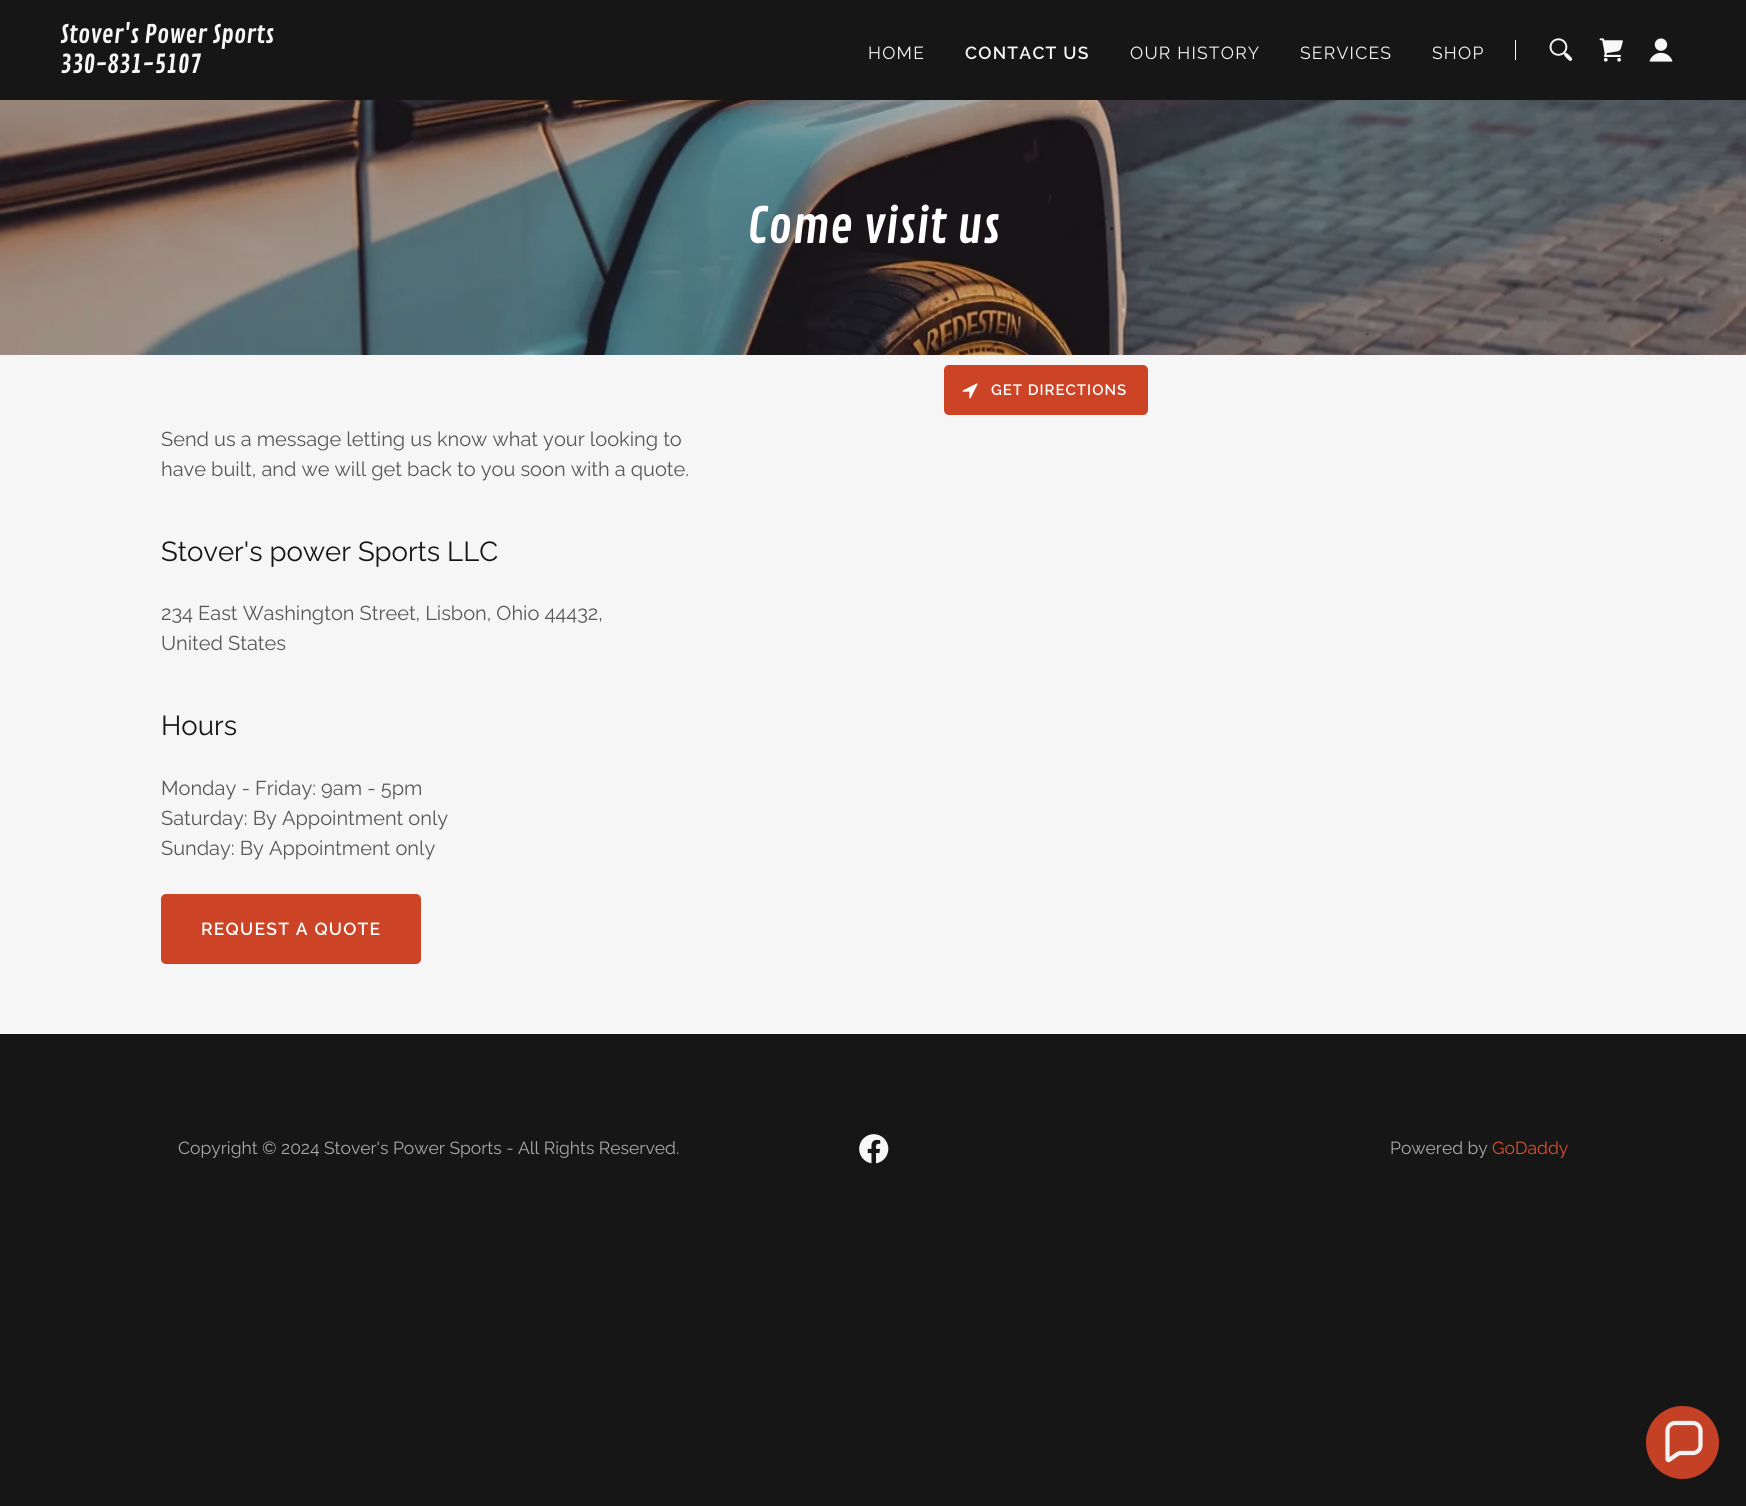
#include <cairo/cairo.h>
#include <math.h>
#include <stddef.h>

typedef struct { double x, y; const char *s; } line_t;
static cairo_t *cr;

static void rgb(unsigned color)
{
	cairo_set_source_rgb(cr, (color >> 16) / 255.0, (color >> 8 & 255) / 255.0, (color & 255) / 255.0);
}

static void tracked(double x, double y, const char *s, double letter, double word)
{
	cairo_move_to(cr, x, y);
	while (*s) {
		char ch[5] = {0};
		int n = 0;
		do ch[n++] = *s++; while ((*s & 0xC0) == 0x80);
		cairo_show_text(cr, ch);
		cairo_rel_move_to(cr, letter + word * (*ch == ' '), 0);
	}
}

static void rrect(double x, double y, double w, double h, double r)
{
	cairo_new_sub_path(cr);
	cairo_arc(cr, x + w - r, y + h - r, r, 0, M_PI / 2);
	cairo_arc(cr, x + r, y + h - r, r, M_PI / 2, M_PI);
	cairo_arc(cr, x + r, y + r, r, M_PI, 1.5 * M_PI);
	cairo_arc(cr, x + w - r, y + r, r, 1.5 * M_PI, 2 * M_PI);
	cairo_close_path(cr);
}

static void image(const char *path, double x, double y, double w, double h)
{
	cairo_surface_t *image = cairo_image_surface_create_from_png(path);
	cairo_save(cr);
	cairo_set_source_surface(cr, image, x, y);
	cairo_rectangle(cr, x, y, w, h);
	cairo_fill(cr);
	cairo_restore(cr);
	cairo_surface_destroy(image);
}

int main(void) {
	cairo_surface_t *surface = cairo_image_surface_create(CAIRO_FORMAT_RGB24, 1746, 1506);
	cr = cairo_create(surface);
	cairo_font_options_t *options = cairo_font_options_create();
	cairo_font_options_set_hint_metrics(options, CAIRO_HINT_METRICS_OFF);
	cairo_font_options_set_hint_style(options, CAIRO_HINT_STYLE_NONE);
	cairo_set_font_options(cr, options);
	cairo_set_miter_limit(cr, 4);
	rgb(0x161616);
	cairo_paint(cr);
	rgb(0xf7f7f7);
	cairo_rectangle(cr, 1515, 40, 1, 20);
	cairo_fill(cr);
	image("img/1.png", 1549, 38, 24, 23);
	image("img/2.png", 1599, 38, 24, 24);
	image("img/3.png", 1649, 38, 24, 24);
	image("img/4.png", 0, 100, 1746, 255);
	rgb(0xf6f6f6);
	cairo_rectangle(cr, 0, 355, 1746, 679);
	cairo_fill(cr);
	rgb(0xcd4326);
	rrect(944, 365, 204, 50, 5);
	cairo_fill(cr);
	image("img/5.png", 962, 383, 16, 16);
	rrect(161, 894, 260, 70, 5);
	cairo_fill(cr);
	image("img/6.png", 859, 1134, 30, 30);
	rgb(0xc44125);
	cairo_arc(cr, 1682.5, 1442.5, 36.5, 0, 2 * M_PI);
	cairo_fill(cr);
	cairo_new_path(cr);
	cairo_move_to(cr, 1693, 1423);
	cairo_line_to(cr, 1675, 1423);
	cairo_curve_to(cr, 1671, 1423, 1667.5, 1426.5, 1667.5, 1430.5);
	cairo_line_to(cr, 1667.5, 1459);
	cairo_curve_to(cr, 1667.5, 1460, 1668.5, 1460.5, 1669, 1460);
	cairo_line_to(cr, 1677.5, 1454);
	cairo_curve_to(cr, 1678.5, 1453.5, 1679.5, 1453, 1680.5, 1453);
	cairo_line_to(cr, 1693, 1453);
	cairo_curve_to(cr, 1697, 1453, 1700.5, 1449.5, 1700.5, 1445.5);
	cairo_line_to(cr, 1700.5, 1430.5);
	cairo_curve_to(cr, 1700.5, 1426.5, 1697, 1423, 1693, 1423);
	cairo_close_path(cr);
	rgb(0xf3f3f3);
	cairo_set_line_width(cr, 4.2);
	cairo_stroke(cr);
	cairo_select_font_face(cr, "Contrail One", CAIRO_FONT_SLANT_NORMAL, CAIRO_FONT_WEIGHT_NORMAL);
	cairo_set_font_size(cr, 25);
	rgb(0xf7f7f7);
	cairo_move_to(cr, 60, 43);
	cairo_show_text(cr, "Stover's Power Sports");
	cairo_move_to(cr, 60, 73);
	cairo_show_text(cr, "330-831-5107");
	cairo_select_font_face(cr, "Raleway", CAIRO_FONT_SLANT_NORMAL, CAIRO_FONT_WEIGHT_NORMAL);
	cairo_set_font_size(cr, 17.5);
	tracked(868, 59, "HOME", 1.25, 0);
	cairo_select_font_face(cr, "Raleway SemiBold", CAIRO_FONT_SLANT_NORMAL, CAIRO_FONT_WEIGHT_NORMAL);
	tracked(965, 59, "CONTACT US", 1.25, 0);
	cairo_select_font_face(cr, "Raleway", CAIRO_FONT_SLANT_NORMAL, CAIRO_FONT_WEIGHT_NORMAL);
	{
		static const line_t items[] = {
			{1130, 59, "OUR HISTORY"},
			{1300, 59, "SERVICES"},
			{1432, 59, "SHOP"},
		};
		for (size_t i = 0; i < sizeof items / sizeof *items; i++) {
			tracked(items[i].x, items[i].y, items[i].s, 1.25, 0);
		}
	}
	cairo_select_font_face(cr, "Contrail One", CAIRO_FONT_SLANT_NORMAL, CAIRO_FONT_WEIGHT_NORMAL);
	cairo_set_font_size(cr, 48.75);
	rgb(0xffffff);
	cairo_move_to(cr, 747, 243);
	cairo_show_text(cr, "Come visit us");
	cairo_select_font_face(cr, "Raleway SemiBold", CAIRO_FONT_SLANT_NORMAL, CAIRO_FONT_WEIGHT_NORMAL);
	cairo_set_font_size(cr, 15);
	tracked(991, 395, "GET DIRECTIONS", 1, 0);
	cairo_select_font_face(cr, "Raleway", CAIRO_FONT_SLANT_NORMAL, CAIRO_FONT_WEIGHT_NORMAL);
	cairo_set_font_size(cr, 20);
	rgb(0x575757);
	cairo_move_to(cr, 161, 446);
	cairo_show_text(cr, "Send us a message letting us know what your looking to");
	cairo_move_to(cr, 161, 476);
	cairo_show_text(cr, "have built, and we will get back to you soon with a quote.");
	cairo_set_font_size(cr, 27.5);
	rgb(0x151515);
	cairo_move_to(cr, 161, 561);
	cairo_show_text(cr, "Stover's power Sports LLC");
	cairo_set_font_size(cr, 20);
	rgb(0x575757);
	cairo_move_to(cr, 161, 620);
	cairo_show_text(cr, "234 East Washington Street, Lisbon, Ohio 44432,");
	cairo_move_to(cr, 161, 650);
	cairo_show_text(cr, "United States");
	cairo_set_font_size(cr, 27.5);
	rgb(0x151515);
	cairo_move_to(cr, 161, 735);
	cairo_show_text(cr, "Hours");
	cairo_set_font_size(cr, 20);
	rgb(0x575757);
	{
		static const line_t items[] = {
			{161, 795, "Monday - Friday: 9am - 5pm"},
			{161, 825, "Saturday: By Appointment only"},
			{161, 855, "Sunday: By Appointment only"},
		};
		for (size_t i = 0; i < sizeof items / sizeof *items; i++) {
			cairo_move_to(cr, items[i].x, items[i].y);
			cairo_show_text(cr, items[i].s);
		}
	}
	cairo_select_font_face(cr, "Raleway SemiBold", CAIRO_FONT_SLANT_NORMAL, CAIRO_FONT_WEIGHT_NORMAL);
	cairo_set_font_size(cr, 17.5);
	rgb(0xffffff);
	tracked(201, 935, "REQUEST A QUOTE", 1.25, 0);
	cairo_select_font_face(cr, "Raleway", CAIRO_FONT_SLANT_NORMAL, CAIRO_FONT_WEIGHT_NORMAL);
	rgb(0xa9a9a9);
	cairo_move_to(cr, 178, 1154);
	cairo_show_text(cr, "Copyright © 2024 Stover's Power Sports - All Rights Reserved.");
	cairo_move_to(cr, 1390, 1154);
	cairo_show_text(cr, "Powered by");
	rgb(0xde4f31);
	cairo_move_to(cr, 1492, 1154);
	cairo_show_text(cr, "GoDaddy");
	cairo_surface_write_to_png(surface, "page.png");
	cairo_font_options_destroy(options);
	cairo_destroy(cr);
	cairo_surface_destroy(surface);
	return 0;
}
